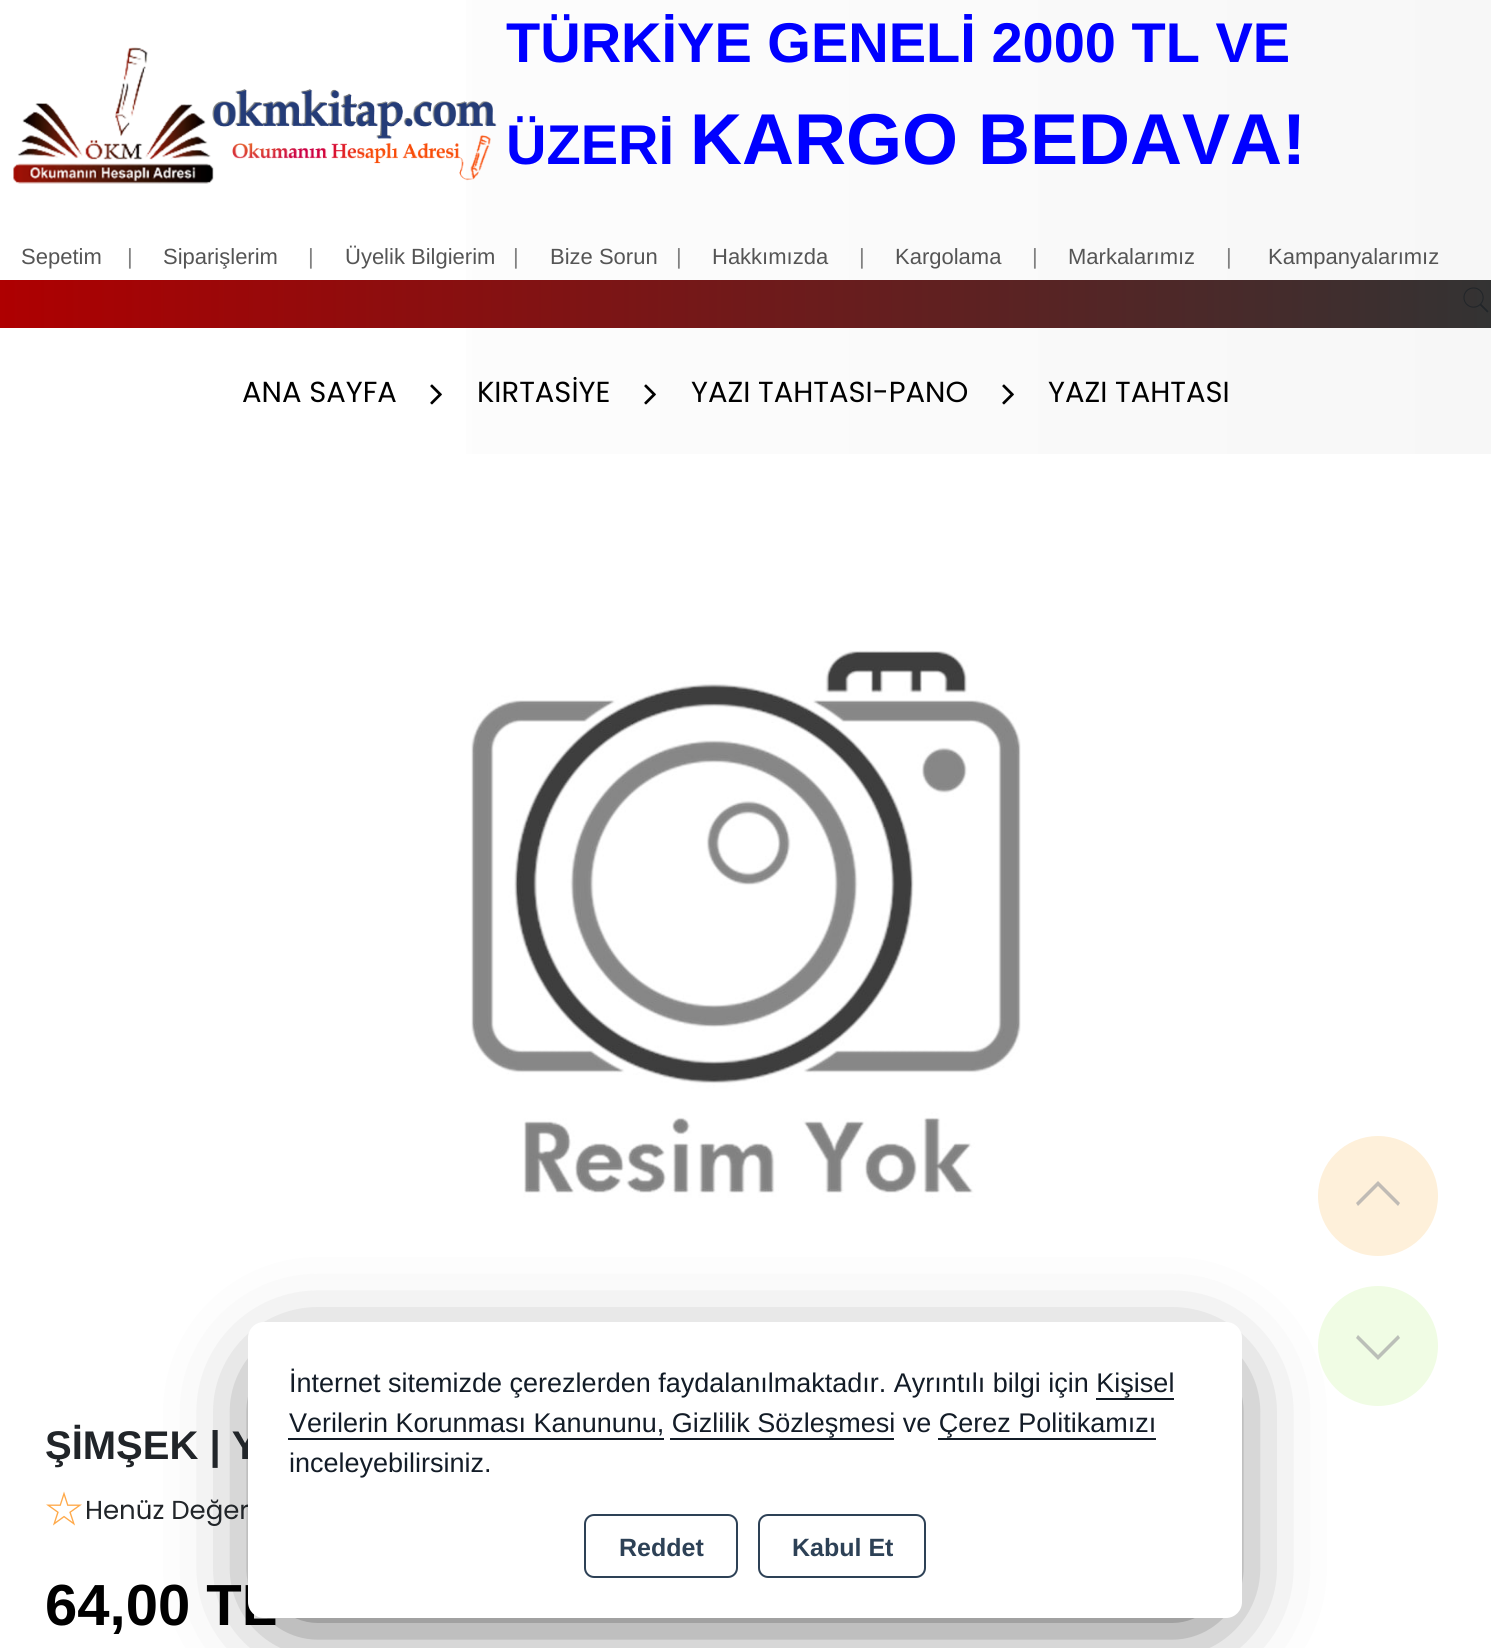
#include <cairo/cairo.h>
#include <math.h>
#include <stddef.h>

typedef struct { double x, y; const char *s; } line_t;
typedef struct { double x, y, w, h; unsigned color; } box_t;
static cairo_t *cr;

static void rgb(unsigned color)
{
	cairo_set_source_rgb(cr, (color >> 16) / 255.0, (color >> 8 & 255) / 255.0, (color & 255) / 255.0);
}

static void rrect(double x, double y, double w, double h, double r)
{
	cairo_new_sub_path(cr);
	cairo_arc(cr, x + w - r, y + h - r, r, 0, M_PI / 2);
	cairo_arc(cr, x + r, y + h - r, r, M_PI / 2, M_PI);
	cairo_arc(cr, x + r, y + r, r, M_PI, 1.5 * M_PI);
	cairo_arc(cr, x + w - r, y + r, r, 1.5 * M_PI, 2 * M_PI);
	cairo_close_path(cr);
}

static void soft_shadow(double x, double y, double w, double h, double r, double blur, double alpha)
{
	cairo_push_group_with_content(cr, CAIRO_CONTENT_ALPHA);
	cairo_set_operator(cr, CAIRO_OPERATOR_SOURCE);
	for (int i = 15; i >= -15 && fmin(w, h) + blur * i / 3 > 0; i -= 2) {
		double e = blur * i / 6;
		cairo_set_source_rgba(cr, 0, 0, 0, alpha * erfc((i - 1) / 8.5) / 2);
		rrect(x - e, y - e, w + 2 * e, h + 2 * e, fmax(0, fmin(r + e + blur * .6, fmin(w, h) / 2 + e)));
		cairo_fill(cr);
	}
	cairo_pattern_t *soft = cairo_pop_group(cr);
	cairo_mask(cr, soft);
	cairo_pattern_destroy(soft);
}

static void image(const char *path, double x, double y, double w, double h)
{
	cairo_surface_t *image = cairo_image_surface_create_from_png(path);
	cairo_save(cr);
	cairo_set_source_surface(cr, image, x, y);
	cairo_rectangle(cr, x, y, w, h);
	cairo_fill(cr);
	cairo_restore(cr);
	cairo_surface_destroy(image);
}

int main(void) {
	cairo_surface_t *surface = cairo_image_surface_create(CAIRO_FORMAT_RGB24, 1491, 1648);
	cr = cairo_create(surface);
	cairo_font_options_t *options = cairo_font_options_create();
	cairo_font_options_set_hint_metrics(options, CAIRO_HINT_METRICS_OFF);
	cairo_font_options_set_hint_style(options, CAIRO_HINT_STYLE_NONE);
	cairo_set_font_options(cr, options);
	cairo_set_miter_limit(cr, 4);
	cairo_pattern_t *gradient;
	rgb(0xffffff);
	cairo_paint(cr);
	gradient = cairo_pattern_create_linear(0, 0, 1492, 0);
	cairo_pattern_add_color_stop_rgba(gradient, 0, 1, 1, 1, 1);
	cairo_pattern_add_color_stop_rgba(gradient, 1, 0.969, 0.969, 0.969, 1);
	cairo_set_source(cr, gradient);
	cairo_pattern_destroy(gradient);
	cairo_rectangle(cr, 466, 0, 1025, 228);
	cairo_fill(cr);
	image("img/1.png", 13, 47, 484, 137);
	gradient = cairo_pattern_create_linear(0, 228, 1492, 228);
	cairo_pattern_add_color_stop_rgba(gradient, 0, 1, 1, 1, 1);
	cairo_pattern_add_color_stop_rgba(gradient, 1, 0.969, 0.969, 0.969, 1);
	cairo_set_source(cr, gradient);
	cairo_pattern_destroy(gradient);
	cairo_rectangle(cr, 466, 228, 1025, 52);
	cairo_fill(cr);
	gradient = cairo_pattern_create_linear(0, 280, 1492, 280);
	cairo_pattern_add_color_stop_rgba(gradient, 0, 0.682, 0, 0.004, 1);
	cairo_pattern_add_color_stop_rgba(gradient, 1, 0.2, 0.2, 0.2, 1);
	cairo_set_source(cr, gradient);
	cairo_pattern_destroy(gradient);
	cairo_rectangle(cr, 0, 280, 1491, 48);
	cairo_fill(cr);
	image("img/2.png", 1463, 287, 26, 26);
	gradient = cairo_pattern_create_linear(0, 328, 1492, 328);
	cairo_pattern_add_color_stop_rgba(gradient, 0, 1, 1, 1, 1);
	cairo_pattern_add_color_stop_rgba(gradient, 1, 0.969, 0.969, 0.969, 1);
	cairo_set_source(cr, gradient);
	cairo_pattern_destroy(gradient);
	cairo_rectangle(cr, 466, 328, 1025, 126);
	cairo_fill(cr);
	image("img/3.png", 430, 384, 12, 21);
	image("img/4.png", 644, 384, 12, 21);
	image("img/5.png", 1002, 384, 12, 21);
	image("img/6.png", 471, 650, 550, 548);
	rgb(0xfef0da);
	cairo_arc(cr, 1378, 1196, 60, 0, 2 * M_PI);
	cairo_fill(cr);
	rgb(0xc0bbb5);
	cairo_new_path(cr);
	cairo_move_to(cr, 1381, 1184);
	cairo_line_to(cr, 1378, 1181);
	cairo_line_to(cr, 1356, 1203);
	cairo_line_to(cr, 1358, 1206);
	cairo_line_to(cr, 1378, 1186);
	cairo_line_to(cr, 1398, 1206);
	cairo_line_to(cr, 1400, 1203);
	cairo_close_path(cr);
	cairo_fill(cr);
	rgb(0xf0fce4);
	cairo_arc(cr, 1378, 1346, 60, 0, 2 * M_PI);
	cairo_fill(cr);
	rgb(0xbbbfb8);
	cairo_new_path(cr);
	cairo_move_to(cr, 1375, 1357);
	cairo_line_to(cr, 1378, 1360);
	cairo_line_to(cr, 1400, 1338);
	cairo_line_to(cr, 1398, 1335);
	cairo_line_to(cr, 1378, 1355);
	cairo_line_to(cr, 1358, 1335);
	cairo_line_to(cr, 1356, 1338);
	cairo_close_path(cr);
	cairo_fill(cr);
	image("img/7.png", 46, 1491, 36, 35);
	rgb(0x000000);
	soft_shadow(288, 1382, 914, 216, 0, 50, 1);
	cairo_select_font_face(cr, "Liberation Sans", CAIRO_FONT_SLANT_NORMAL, CAIRO_FONT_WEIGHT_BOLD);
	cairo_set_font_size(cr, 56);
	rgb(0x0000ff);
	cairo_move_to(cr, 506, 62);
	cairo_show_text(cr, "TÜRKİYE GENELİ 2000 TL VE");
	cairo_move_to(cr, 506, 164);
	cairo_show_text(cr, "ÜZERİ");
	cairo_set_font_size(cr, 72);
	cairo_move_to(cr, 690, 164);
	cairo_show_text(cr, "KARGO BEDAVA!");
	cairo_select_font_face(cr, "Liberation Sans", CAIRO_FONT_SLANT_NORMAL, CAIRO_FONT_WEIGHT_NORMAL);
	cairo_set_font_size(cr, 22);
	rgb(0x555555);
	cairo_move_to(cr, 21, 264);
	cairo_show_text(cr, "Sepetim");
	rgb(0x808080);
	cairo_move_to(cr, 127, 264);
	cairo_show_text(cr, "|");
	rgb(0x555555);
	cairo_move_to(cr, 163, 264);
	cairo_show_text(cr, "Siparişlerim");
	rgb(0x808080);
	cairo_move_to(cr, 308, 264);
	cairo_show_text(cr, "|");
	rgb(0x555555);
	cairo_move_to(cr, 345, 264);
	cairo_show_text(cr, "Üyelik Bilgierim");
	rgb(0x808080);
	cairo_move_to(cr, 513, 264);
	cairo_show_text(cr, "|");
	rgb(0x555555);
	cairo_move_to(cr, 550, 264);
	cairo_show_text(cr, "Bize Sorun");
	rgb(0x808080);
	cairo_move_to(cr, 676, 264);
	cairo_show_text(cr, "|");
	rgb(0x555555);
	cairo_move_to(cr, 712, 264);
	cairo_show_text(cr, "Hakkımızda");
	rgb(0x808080);
	cairo_move_to(cr, 859, 264);
	cairo_show_text(cr, "|");
	rgb(0x555555);
	cairo_move_to(cr, 895, 264);
	cairo_show_text(cr, "Kargolama");
	rgb(0x808080);
	cairo_move_to(cr, 1032, 264);
	cairo_show_text(cr, "|");
	rgb(0x555555);
	cairo_move_to(cr, 1068, 264);
	cairo_show_text(cr, "Markalarımız");
	rgb(0x808080);
	cairo_move_to(cr, 1226, 264);
	cairo_show_text(cr, "|");
	rgb(0x555555);
	cairo_move_to(cr, 1268, 264);
	cairo_show_text(cr, "Kampanyalarımız");
	cairo_select_font_face(cr, "Poppins", CAIRO_FONT_SLANT_NORMAL, CAIRO_FONT_WEIGHT_NORMAL);
	cairo_set_font_size(cr, 29);
	rgb(0x000000);
	{
		static const line_t items[] = {
			{242, 402, "ANA SAYFA"},
			{477, 402, "KIRTASİYE"},
			{691, 402, "YAZI TAHTASI-PANO"},
			{1048, 402, "YAZI TAHTASI"},
		};
		for (size_t i = 0; i < sizeof items / sizeof *items; i++) {
			cairo_move_to(cr, items[i].x, items[i].y);
			cairo_show_text(cr, items[i].s);
		}
	}
	cairo_select_font_face(cr, "Liberation Sans", CAIRO_FONT_SLANT_NORMAL, CAIRO_FONT_WEIGHT_BOLD);
	cairo_set_font_size(cr, 40);
	rgb(0x212529);
	cairo_move_to(cr, 45, 1459);
	cairo_show_text(cr, "ŞİMŞEK | Y");
	cairo_select_font_face(cr, "Poppins", CAIRO_FONT_SLANT_NORMAL, CAIRO_FONT_WEIGHT_NORMAL);
	cairo_set_font_size(cr, 26);
	cairo_move_to(cr, 85, 1519);
	cairo_show_text(cr, "Henüz Değer");
	cairo_select_font_face(cr, "Liberation Sans", CAIRO_FONT_SLANT_NORMAL, CAIRO_FONT_WEIGHT_BOLD);
	cairo_set_font_size(cr, 58);
	rgb(0x000000);
	cairo_move_to(cr, 45, 1625);
	cairo_show_text(cr, "64,00 TL");
	rgb(0xffffff);
	rrect(248, 1322, 994, 296, 16);
	cairo_fill(cr);
	cairo_select_font_face(cr, "Liberation Sans", CAIRO_FONT_SLANT_NORMAL, CAIRO_FONT_WEIGHT_NORMAL);
	cairo_set_font_size(cr, 27);
	rgb(0x131c27);
	cairo_move_to(cr, 289, 1392);
	cairo_show_text(cr, "İnternet sitemizde çerezlerden faydalanılmaktadır. Ayrıntılı bilgi için Kişisel");
	cairo_move_to(cr, 289, 1432);
	cairo_show_text(cr, "Verilerin Korunması Kanununu, Gizlilik Sözleşmesi ve Çerez Politikamızı");
	{
		static const box_t items[] = {
			{1096, 1398, 78, 2, 0x131c27},
			{288, 1438, 376, 2, 0x131c27},
			{670, 1438, 224, 2, 0x131c27},
			{938, 1438, 218, 2, 0x131c27},
		};
		for (size_t i = 0; i < sizeof items / sizeof *items; i++) {
			rgb(items[i].color);
			cairo_rectangle(cr, items[i].x, items[i].y, items[i].w, items[i].h);
			cairo_fill(cr);
		}
	}
	cairo_move_to(cr, 289, 1472);
	cairo_show_text(cr, "inceleyebilirsiniz.");
	rrect(585, 1515, 152, 62, 9);
	rgb(0x2d4156);
	cairo_stroke(cr);
	cairo_select_font_face(cr, "Liberation Sans", CAIRO_FONT_SLANT_NORMAL, CAIRO_FONT_WEIGHT_BOLD);
	cairo_set_font_size(cr, 25);
	cairo_move_to(cr, 619, 1556);
	cairo_show_text(cr, "Reddet");
	rrect(759, 1515, 166, 62, 9);
	cairo_stroke(cr);
	cairo_move_to(cr, 792, 1556);
	cairo_show_text(cr, "Kabul Et");
	cairo_surface_write_to_png(surface, "page.png");
	cairo_font_options_destroy(options);
	cairo_destroy(cr);
	cairo_surface_destroy(surface);
	return 0;
}
